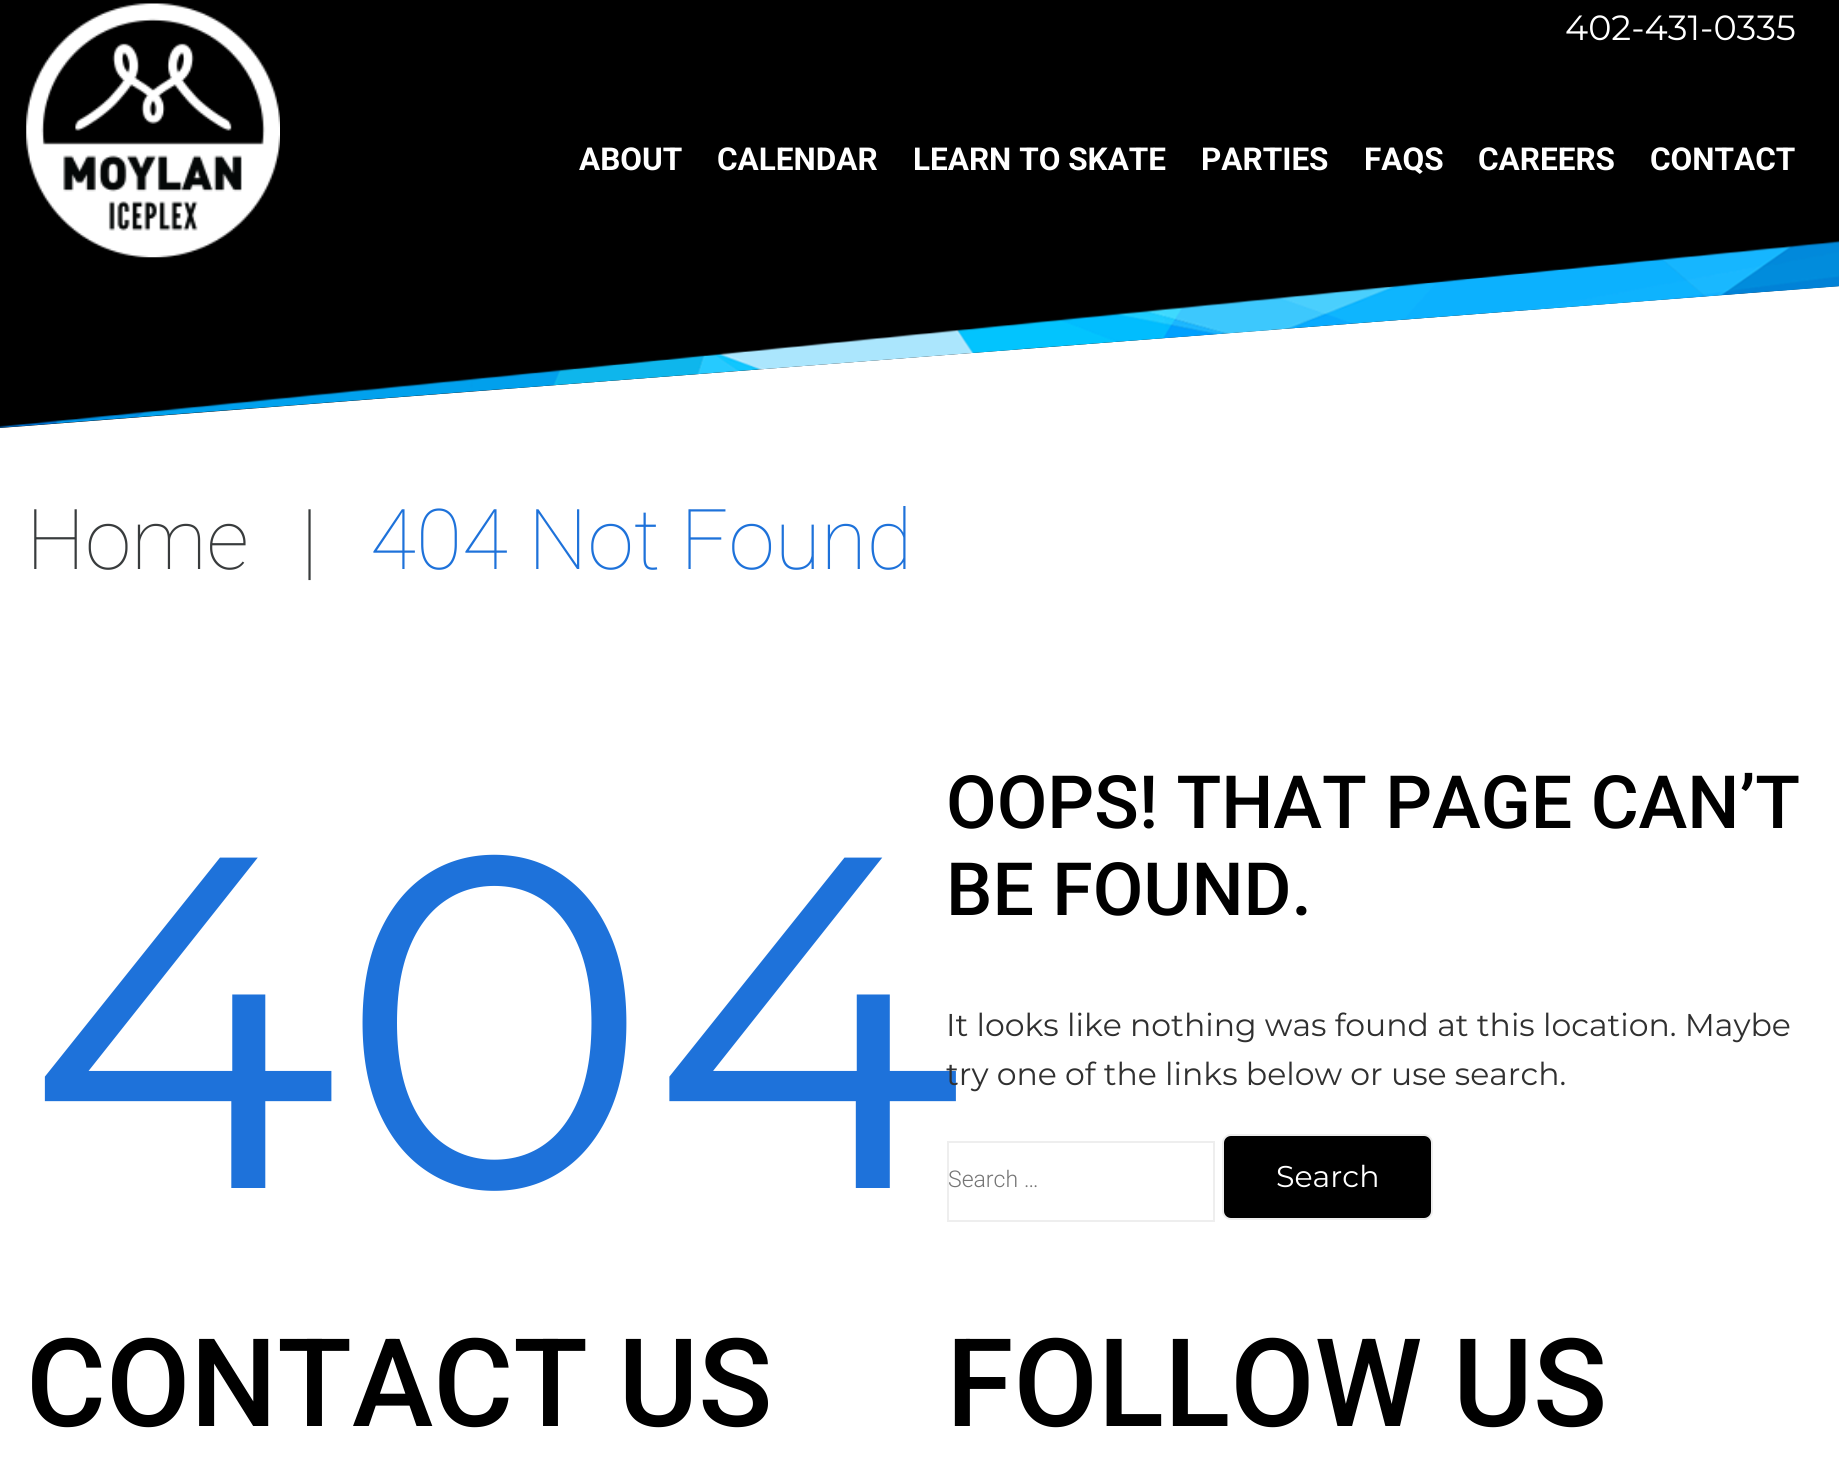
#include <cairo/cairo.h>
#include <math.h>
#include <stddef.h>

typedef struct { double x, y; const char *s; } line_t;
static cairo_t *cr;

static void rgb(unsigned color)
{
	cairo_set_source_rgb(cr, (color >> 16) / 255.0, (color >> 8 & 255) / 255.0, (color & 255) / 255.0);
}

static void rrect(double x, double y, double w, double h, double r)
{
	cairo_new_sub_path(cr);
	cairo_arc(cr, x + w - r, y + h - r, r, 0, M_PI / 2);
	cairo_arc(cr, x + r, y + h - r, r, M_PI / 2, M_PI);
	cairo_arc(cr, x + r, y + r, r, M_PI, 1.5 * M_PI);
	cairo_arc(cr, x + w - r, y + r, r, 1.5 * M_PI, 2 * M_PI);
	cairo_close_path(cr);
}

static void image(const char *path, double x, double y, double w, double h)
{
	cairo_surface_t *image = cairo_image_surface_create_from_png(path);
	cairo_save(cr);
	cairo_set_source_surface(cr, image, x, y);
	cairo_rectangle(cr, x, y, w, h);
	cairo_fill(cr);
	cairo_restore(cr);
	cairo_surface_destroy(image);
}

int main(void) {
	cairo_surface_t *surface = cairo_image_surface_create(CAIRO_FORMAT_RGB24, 1839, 1476);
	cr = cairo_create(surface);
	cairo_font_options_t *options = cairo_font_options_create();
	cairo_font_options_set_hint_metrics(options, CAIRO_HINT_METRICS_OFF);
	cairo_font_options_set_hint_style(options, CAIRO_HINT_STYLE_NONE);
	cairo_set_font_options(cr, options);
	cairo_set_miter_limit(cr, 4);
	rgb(0xffffff);
	cairo_paint(cr);
	rgb(0x000000);
	cairo_new_path(cr);
	cairo_move_to(cr, 0, -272);
	cairo_line_to(cr, 1839, -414);
	cairo_line_to(cr, 1839, 286);
	cairo_line_to(cr, 0, 428);
	cairo_close_path(cr);
	cairo_fill(cr);
	image("img/2.png", 0, 240, 1839, 188);
	image("img/1.png", 26, 3, 254, 255);
	rrect(1223, 1135, 209, 84, 8);
	cairo_fill_preserve(cr);
	rgb(0xeeeeee);
	cairo_stroke(cr);
	cairo_select_font_face(cr, "Montserrat Thin", CAIRO_FONT_SLANT_NORMAL, CAIRO_FONT_WEIGHT_NORMAL);
	cairo_set_font_size(cr, 35);
	rgb(0xffffff);
	cairo_move_to(cr, 1565, 40);
	cairo_show_text(cr, "402-431-0335");
	cairo_select_font_face(cr, "Roboto", CAIRO_FONT_SLANT_NORMAL, CAIRO_FONT_WEIGHT_BOLD);
	cairo_set_font_size(cr, 31.5);
	{
		static const line_t items[] = {
			{579, 170, "ABOUT"},
			{717, 170, "CALENDAR"},
			{913, 170, "LEARN TO SKATE"},
			{1201, 170, "PARTIES"},
			{1364, 170, "FAQS"},
			{1478, 170, "CAREERS"},
			{1650, 170, "CONTACT"},
		};
		for (size_t i = 0; i < sizeof items / sizeof *items; i++) {
			cairo_move_to(cr, items[i].x, items[i].y);
			cairo_show_text(cr, items[i].s);
		}
	}
	cairo_select_font_face(cr, "Roboto Thin", CAIRO_FONT_SLANT_NORMAL, CAIRO_FONT_WEIGHT_NORMAL);
	cairo_set_font_size(cr, 84);
	rgb(0x393c3d);
	cairo_move_to(cr, 26, 569);
	cairo_show_text(cr, "Home");
	cairo_move_to(cr, 301, 569);
	cairo_show_text(cr, "|");
	rgb(0x1e72da);
	cairo_move_to(cr, 370, 569);
	cairo_show_text(cr, "404 Not Found");
	cairo_select_font_face(cr, "Montserrat Thin", CAIRO_FONT_SLANT_NORMAL, CAIRO_FONT_WEIGHT_NORMAL);
	cairo_set_font_size(cr, 472);
	cairo_move_to(cr, 26, 1188);
	cairo_show_text(cr, "404");
	cairo_select_font_face(cr, "Roboto Medium", CAIRO_FONT_SLANT_NORMAL, CAIRO_FONT_WEIGHT_NORMAL);
	cairo_set_font_size(cr, 73.5);
	rgb(0x000000);
	cairo_move_to(cr, 946, 828);
	cairo_show_text(cr, "OOPS! THAT PAGE CAN’T");
	cairo_move_to(cr, 946, 915);
	cairo_show_text(cr, "BE FOUND.");
	cairo_select_font_face(cr, "Montserrat Thin", CAIRO_FONT_SLANT_NORMAL, CAIRO_FONT_WEIGHT_NORMAL);
	cairo_set_font_size(cr, 31.5);
	rgb(0x303030);
	cairo_move_to(cr, 946, 1036);
	cairo_show_text(cr, "It looks like nothing was found at this location. Maybe");
	cairo_move_to(cr, 946, 1085);
	cairo_show_text(cr, "try one of the links below or use search.");
	cairo_rectangle(cr, 948, 1142, 266, 79);
	rgb(0xeeeeee);
	cairo_stroke(cr);
	cairo_select_font_face(cr, "Roboto Light", CAIRO_FONT_SLANT_NORMAL, CAIRO_FONT_WEIGHT_NORMAL);
	cairo_set_font_size(cr, 23);
	rgb(0x757575);
	cairo_move_to(cr, 948, 1187);
	cairo_show_text(cr, "Search …");
	cairo_select_font_face(cr, "Montserrat Thin", CAIRO_FONT_SLANT_NORMAL, CAIRO_FONT_WEIGHT_NORMAL);
	cairo_set_font_size(cr, 30);
	rgb(0xffffff);
	cairo_move_to(cr, 1276, 1187);
	cairo_show_text(cr, "Search");
	cairo_select_font_face(cr, "Roboto Medium", CAIRO_FONT_SLANT_NORMAL, CAIRO_FONT_WEIGHT_NORMAL);
	cairo_set_font_size(cr, 122.5);
	rgb(0x000000);
	cairo_move_to(cr, 26, 1426);
	cairo_show_text(cr, "CONTACT US");
	cairo_move_to(cr, 946, 1426);
	cairo_show_text(cr, "FOLLOW US");
	cairo_surface_write_to_png(surface, "page.png");
	cairo_font_options_destroy(options);
	cairo_destroy(cr);
	cairo_surface_destroy(surface);
	return 0;
}
